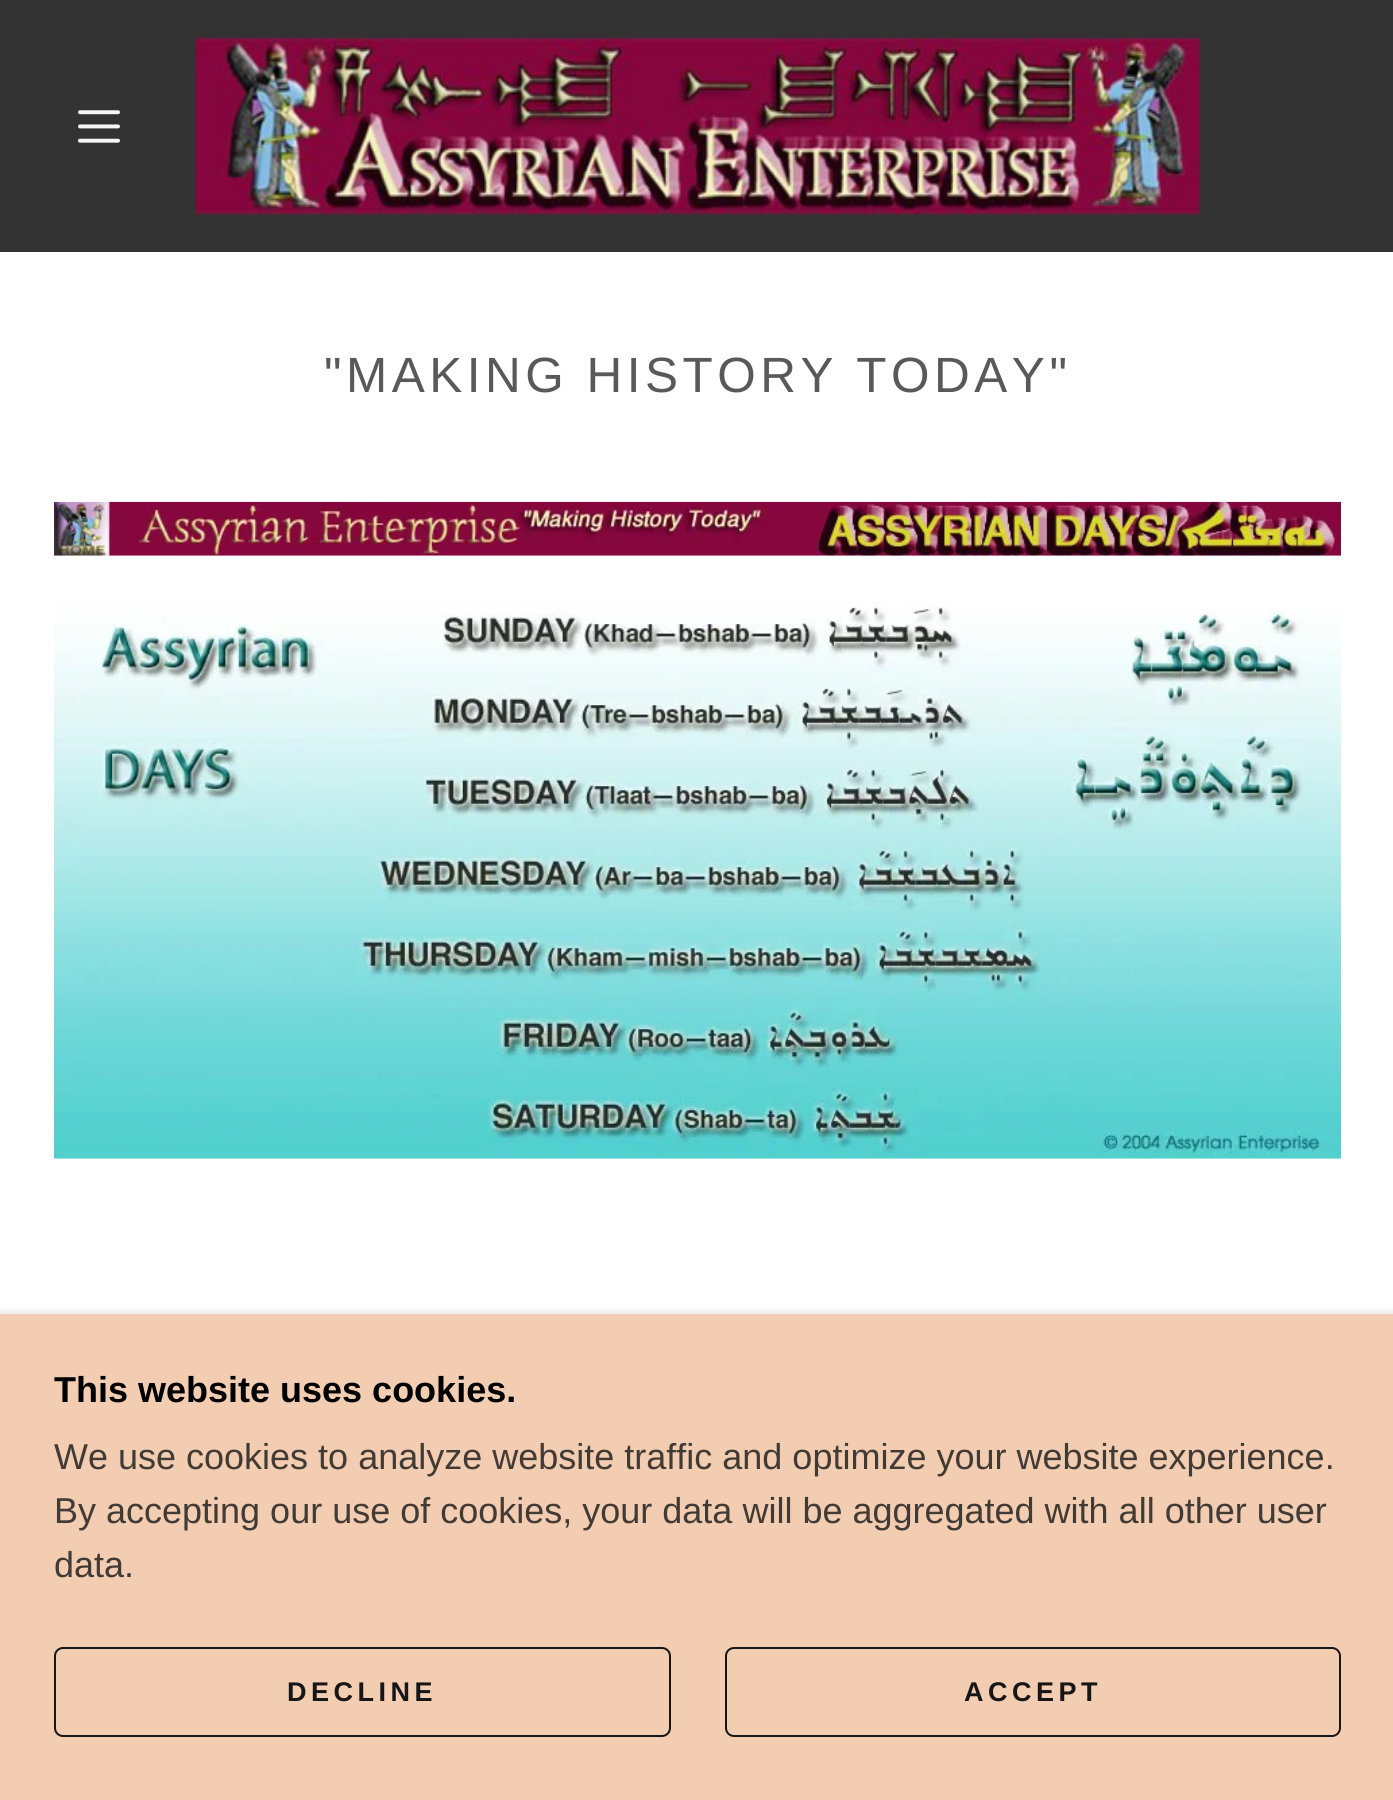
#include <cairo/cairo.h>
#include <math.h>
#include <stddef.h>

typedef struct { double x, y; const char *s; } line_t;
static cairo_t *cr;

static void rgb(unsigned color)
{
	cairo_set_source_rgb(cr, (color >> 16) / 255.0, (color >> 8 & 255) / 255.0, (color & 255) / 255.0);
}

static void tracked(double x, double y, const char *s, double letter, double word)
{
	cairo_move_to(cr, x, y);
	while (*s) {
		char ch[5] = {0};
		int n = 0;
		do ch[n++] = *s++; while ((*s & 0xC0) == 0x80);
		cairo_show_text(cr, ch);
		cairo_rel_move_to(cr, letter + word * (*ch == ' '), 0);
	}
}

static void rrect(double x, double y, double w, double h, double r)
{
	cairo_new_sub_path(cr);
	cairo_arc(cr, x + w - r, y + h - r, r, 0, M_PI / 2);
	cairo_arc(cr, x + r, y + h - r, r, M_PI / 2, M_PI);
	cairo_arc(cr, x + r, y + r, r, M_PI, 1.5 * M_PI);
	cairo_arc(cr, x + w - r, y + r, r, 1.5 * M_PI, 2 * M_PI);
	cairo_close_path(cr);
}

static void soft_shadow(double x, double y, double w, double h, double r, double blur, double alpha)
{
	cairo_push_group_with_content(cr, CAIRO_CONTENT_ALPHA);
	cairo_set_operator(cr, CAIRO_OPERATOR_SOURCE);
	for (int i = 15; i >= -15 && fmin(w, h) + blur * i / 3 > 0; i -= 2) {
		double e = blur * i / 6;
		cairo_set_source_rgba(cr, 0, 0, 0, alpha * erfc((i - 1) / 8.5) / 2);
		rrect(x - e, y - e, w + 2 * e, h + 2 * e, fmax(0, fmin(r + e + blur * .6, fmin(w, h) / 2 + e)));
		cairo_fill(cr);
	}
	cairo_pattern_t *soft = cairo_pop_group(cr);
	cairo_mask(cr, soft);
	cairo_pattern_destroy(soft);
}

static void image(const char *path, double x, double y, double w, double h)
{
	cairo_surface_t *image = cairo_image_surface_create_from_png(path);
	cairo_save(cr);
	cairo_set_source_surface(cr, image, x, y);
	cairo_rectangle(cr, x, y, w, h);
	cairo_fill(cr);
	cairo_restore(cr);
	cairo_surface_destroy(image);
}

int main(void) {
	cairo_surface_t *surface = cairo_image_surface_create(CAIRO_FORMAT_RGB24, 1393, 1800);
	cr = cairo_create(surface);
	cairo_font_options_t *options = cairo_font_options_create();
	cairo_font_options_set_hint_metrics(options, CAIRO_HINT_METRICS_OFF);
	cairo_font_options_set_hint_style(options, CAIRO_HINT_STYLE_NONE);
	cairo_set_font_options(cr, options);
	cairo_set_miter_limit(cr, 4);
	rgb(0xffffff);
	cairo_paint(cr);
	rgb(0x333333);
	cairo_rectangle(cr, 0, 0, 1393, 252);
	cairo_fill(cr);
	image("img/1.png", 78, 110, 42, 33);
	image("img/2.png", 194, 36, 1007, 180);
	image("img/3.png", 54, 501, 1287, 55);
	image("img/4.png", 54, 603, 1287, 556);
	rgb(0x000000);
	soft_shadow(0, 1319, 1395, 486, 0, 7, 0.3);
	rgb(0xf2cdb1);
	cairo_rectangle(cr, 0, 1314, 1393, 486);
	cairo_fill(cr);
	rrect(55, 1648, 615, 88, 8);
	rgb(0x161616);
	cairo_stroke(cr);
	rrect(726, 1648, 614, 88, 8);
	cairo_stroke(cr);
	cairo_select_font_face(cr, "Liberation Sans", CAIRO_FONT_SLANT_NORMAL, CAIRO_FONT_WEIGHT_NORMAL);
	cairo_set_font_size(cr, 49.5);
	rgb(0x595959);
	tracked(324, 392, "\"MAKING HISTORY TODAY\"", 4.5, 0);
	cairo_select_font_face(cr, "Liberation Sans", CAIRO_FONT_SLANT_NORMAL, CAIRO_FONT_WEIGHT_BOLD);
	cairo_set_font_size(cr, 36);
	rgb(0x000000);
	cairo_move_to(cr, 54, 1402);
	cairo_show_text(cr, "This website uses cookies.");
	cairo_select_font_face(cr, "Liberation Sans", CAIRO_FONT_SLANT_NORMAL, CAIRO_FONT_WEIGHT_NORMAL);
	rgb(0x423a34);
	{
		static const line_t items[] = {
			{54, 1469, "We use cookies to analyze website traffic and optimize your website experience."},
			{54, 1523, "By accepting our use of cookies, your data will be aggregated with all other user"},
			{54, 1577, "data."},
		};
		for (size_t i = 0; i < sizeof items / sizeof *items; i++) {
			cairo_move_to(cr, items[i].x, items[i].y);
			cairo_show_text(cr, items[i].s);
		}
	}
	cairo_select_font_face(cr, "Liberation Sans", CAIRO_FONT_SLANT_NORMAL, CAIRO_FONT_WEIGHT_BOLD);
	cairo_set_font_size(cr, 27);
	rgb(0x161616);
	tracked(287, 1701, "DECLINE", 4.5, 0);
	tracked(964, 1701, "ACCEPT", 4.5, 0);
	cairo_surface_write_to_png(surface, "page.png");
	cairo_font_options_destroy(options);
	cairo_destroy(cr);
	cairo_surface_destroy(surface);
	return 0;
}
